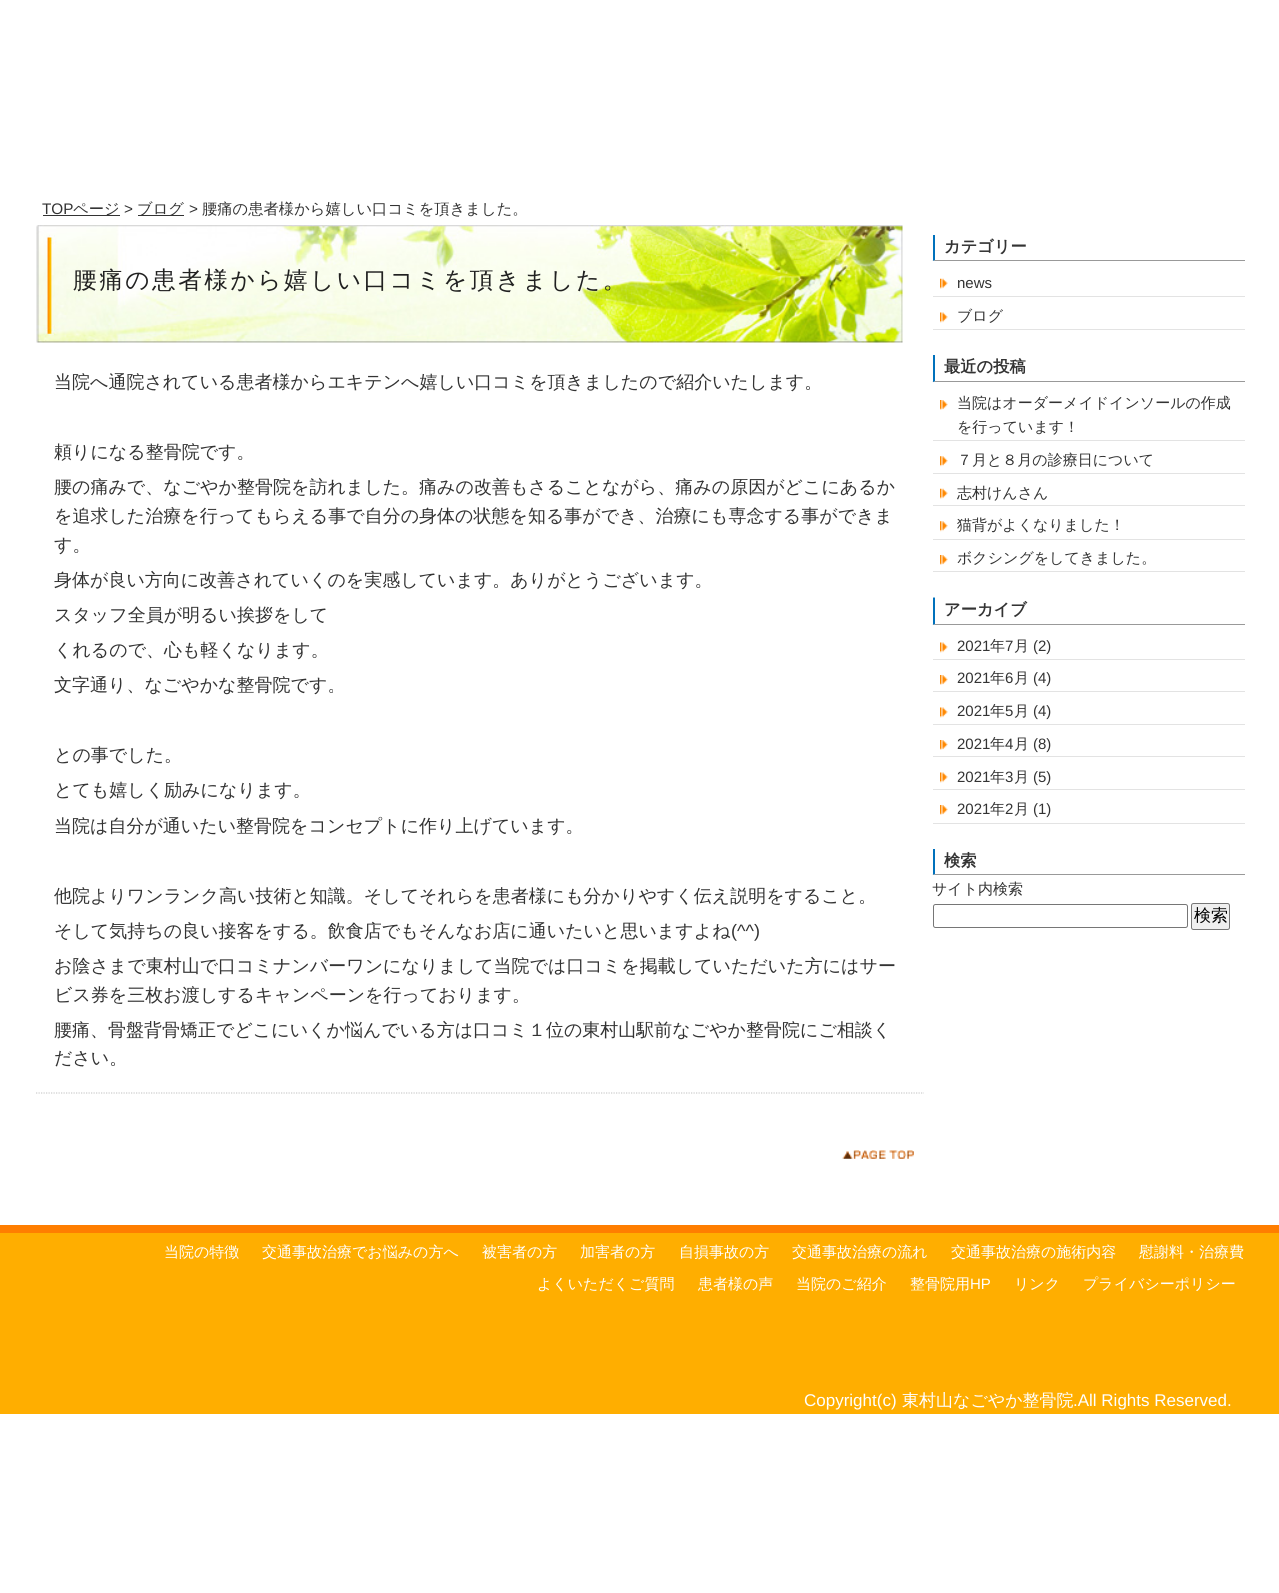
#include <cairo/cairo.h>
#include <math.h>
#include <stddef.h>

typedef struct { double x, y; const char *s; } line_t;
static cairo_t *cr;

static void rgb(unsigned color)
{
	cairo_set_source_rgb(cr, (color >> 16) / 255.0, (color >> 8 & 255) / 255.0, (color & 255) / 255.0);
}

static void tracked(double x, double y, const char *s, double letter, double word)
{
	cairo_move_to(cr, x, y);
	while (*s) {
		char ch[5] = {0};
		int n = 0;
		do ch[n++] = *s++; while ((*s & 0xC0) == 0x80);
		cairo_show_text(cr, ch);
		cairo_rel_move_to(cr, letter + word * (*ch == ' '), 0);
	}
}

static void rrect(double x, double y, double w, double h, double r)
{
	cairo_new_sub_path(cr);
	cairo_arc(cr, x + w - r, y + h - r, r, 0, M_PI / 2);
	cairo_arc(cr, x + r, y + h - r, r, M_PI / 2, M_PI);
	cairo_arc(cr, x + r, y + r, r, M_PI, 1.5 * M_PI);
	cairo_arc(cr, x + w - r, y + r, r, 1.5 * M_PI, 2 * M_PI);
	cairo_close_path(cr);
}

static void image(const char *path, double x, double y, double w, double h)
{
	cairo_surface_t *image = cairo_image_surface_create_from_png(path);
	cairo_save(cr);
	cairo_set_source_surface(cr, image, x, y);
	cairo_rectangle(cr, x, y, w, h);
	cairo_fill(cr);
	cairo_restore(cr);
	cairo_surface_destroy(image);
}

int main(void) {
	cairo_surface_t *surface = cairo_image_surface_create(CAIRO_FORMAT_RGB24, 1279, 1593);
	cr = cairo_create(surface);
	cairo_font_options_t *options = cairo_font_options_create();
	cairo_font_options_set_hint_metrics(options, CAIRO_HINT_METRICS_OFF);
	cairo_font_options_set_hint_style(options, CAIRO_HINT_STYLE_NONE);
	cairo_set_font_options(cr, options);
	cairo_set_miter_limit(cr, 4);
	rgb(0xffffff);
	cairo_paint(cr);
	rgb(0x333333);
	cairo_rectangle(cr, 43, 215, 77, 1);
	cairo_fill(cr);
	cairo_rectangle(cr, 138, 215, 46, 1);
	cairo_fill(cr);
	image("img/1.png", 36, 225, 867, 118);
	cairo_new_path(cr);
	cairo_move_to(cr, 36, 1093);
	cairo_line_to(cr, 924, 1093);
	rgb(0xcccccc);
	cairo_set_line_width(cr, 1.2);
	cairo_set_dash(cr, (double[]){1.25, 1.25}, 2, 0);
	cairo_stroke(cr);
	image("img/2.png", 842, 1150, 72, 9);
	rgb(0x999999);
	cairo_new_path(cr);
	cairo_move_to(cr, 1245, 261);
	cairo_line_to(cr, 932, 261);
	cairo_line_to(cr, 935, 260);
	cairo_line_to(cr, 1245, 260);
	cairo_close_path(cr);
	cairo_fill(cr);
	cairo_save(cr);
	cairo_rectangle(cr, 933, 225, 312, 720);
	cairo_clip(cr);
	rgb(0x0071bc);
	cairo_new_path(cr);
	cairo_move_to(cr, 932.5, 261);
	cairo_line_to(cr, 932.5, 235);
	cairo_line_to(cr, 935, 235);
	cairo_line_to(cr, 935, 260);
	cairo_close_path(cr);
	cairo_fill(cr);
	cairo_restore(cr);
	image("img/3.png", 940, 278, 8, 11);
	rgb(0xe3e3e3);
	cairo_rectangle(cr, 933, 296, 312, 1);
	cairo_fill(cr);
	image("img/4.png", 940, 312, 8, 11);
	cairo_rectangle(cr, 933, 329, 312, 1);
	cairo_fill(cr);
	rgb(0x999999);
	cairo_new_path(cr);
	cairo_move_to(cr, 1245, 382);
	cairo_line_to(cr, 932, 382);
	cairo_line_to(cr, 935, 381);
	cairo_line_to(cr, 1245, 381);
	cairo_close_path(cr);
	cairo_fill(cr);
	cairo_save(cr);
	cairo_rectangle(cr, 933, 225, 312, 720);
	cairo_clip(cr);
	rgb(0x0071bc);
	cairo_new_path(cr);
	cairo_move_to(cr, 932.5, 382.5);
	cairo_line_to(cr, 932.5, 355);
	cairo_line_to(cr, 935, 355);
	cairo_line_to(cr, 935, 381);
	cairo_close_path(cr);
	cairo_fill(cr);
	cairo_restore(cr);
	image("img/5.png", 940, 400, 8, 10);
	rgb(0xe3e3e3);
	cairo_rectangle(cr, 933, 440, 312, 1);
	cairo_fill(cr);
	image("img/6.png", 940, 456, 8, 11);
	cairo_rectangle(cr, 933, 473, 312, 1);
	cairo_fill(cr);
	image("img/3.png", 940, 488, 8, 11);
	cairo_rectangle(cr, 933, 505, 312, 1);
	cairo_fill(cr);
	image("img/6.png", 940, 521, 8, 11);
	cairo_rectangle(cr, 933, 539, 312, 1);
	cairo_fill(cr);
	image("img/5.png", 940, 555, 8, 10);
	cairo_rectangle(cr, 933, 571, 312, 1);
	cairo_fill(cr);
	rgb(0x999999);
	cairo_new_path(cr);
	cairo_move_to(cr, 1245, 625);
	cairo_line_to(cr, 932, 625);
	cairo_line_to(cr, 935, 624);
	cairo_line_to(cr, 1245, 624);
	cairo_close_path(cr);
	cairo_fill(cr);
	cairo_save(cr);
	cairo_rectangle(cr, 933, 225, 312, 720);
	cairo_clip(cr);
	rgb(0x0071bc);
	cairo_new_path(cr);
	cairo_move_to(cr, 932.5, 625);
	cairo_line_to(cr, 932.5, 597.5);
	cairo_line_to(cr, 935, 597.5);
	cairo_line_to(cr, 935, 624);
	cairo_close_path(cr);
	cairo_fill(cr);
	cairo_restore(cr);
	image("img/4.png", 940, 642, 8, 11);
	rgb(0xe3e3e3);
	cairo_rectangle(cr, 933, 659, 312, 1);
	cairo_fill(cr);
	image("img/5.png", 940, 675, 8, 10);
	cairo_rectangle(cr, 933, 691, 312, 1);
	cairo_fill(cr);
	image("img/4.png", 940, 707, 8, 11);
	cairo_rectangle(cr, 933, 724, 312, 1);
	cairo_fill(cr);
	image("img/5.png", 940, 740, 8, 10);
	cairo_rectangle(cr, 933, 756, 312, 1);
	cairo_fill(cr);
	image("img/4.png", 940, 772, 8, 11);
	cairo_rectangle(cr, 933, 789, 312, 1);
	cairo_fill(cr);
	image("img/5.png", 940, 805, 8, 10);
	cairo_rectangle(cr, 933, 823, 312, 1);
	cairo_fill(cr);
	rgb(0x999999);
	cairo_new_path(cr);
	cairo_move_to(cr, 1245, 875);
	cairo_line_to(cr, 932, 875);
	cairo_line_to(cr, 935, 874);
	cairo_line_to(cr, 1245, 874);
	cairo_close_path(cr);
	cairo_fill(cr);
	cairo_save(cr);
	cairo_rectangle(cr, 933, 225, 312, 720);
	cairo_clip(cr);
	rgb(0x0071bc);
	cairo_new_path(cr);
	cairo_move_to(cr, 932.5, 875);
	cairo_line_to(cr, 932.5, 849);
	cairo_line_to(cr, 935, 849);
	cairo_line_to(cr, 935, 874);
	cairo_close_path(cr);
	cairo_fill(cr);
	cairo_restore(cr);
	rrect(933.5, 904.5, 254, 23, 2);
	rgb(0x767676);
	cairo_set_line_width(cr, 1);
	cairo_set_dash(cr, NULL, 0, 0);
	cairo_stroke(cr);
	rgb(0xefefef);
	rrect(1191.5, 903.5, 38, 26, 2);
	cairo_fill_preserve(cr);
	rgb(0x767676);
	cairo_stroke(cr);
	rgb(0xffae00);
	cairo_rectangle(cr, 0, 1233, 1279, 181);
	cairo_fill(cr);
	rgb(0xff7e00);
	cairo_rectangle(cr, 0, 1225, 1279, 8);
	cairo_fill(cr);
	cairo_select_font_face(cr, "Liberation Sans", CAIRO_FONT_SLANT_NORMAL, CAIRO_FONT_WEIGHT_NORMAL);
	cairo_set_font_size(cr, 15.3);
	rgb(0x333333);
	cairo_move_to(cr, 42, 214);
	cairo_show_text(cr, "TOP");
	cairo_select_font_face(cr, "WenQuanYi Zen Hei Medium", CAIRO_FONT_SLANT_NORMAL, CAIRO_FONT_WEIGHT_NORMAL);
	cairo_move_to(cr, 73, 214);
	cairo_show_text(cr, "ページ");
	cairo_select_font_face(cr, "Liberation Sans", CAIRO_FONT_SLANT_NORMAL, CAIRO_FONT_WEIGHT_NORMAL);
	cairo_move_to(cr, 124, 214);
	cairo_show_text(cr, ">");
	cairo_select_font_face(cr, "WenQuanYi Zen Hei Medium", CAIRO_FONT_SLANT_NORMAL, CAIRO_FONT_WEIGHT_NORMAL);
	cairo_move_to(cr, 137, 214);
	cairo_show_text(cr, "ブログ");
	cairo_select_font_face(cr, "Liberation Sans", CAIRO_FONT_SLANT_NORMAL, CAIRO_FONT_WEIGHT_NORMAL);
	cairo_move_to(cr, 189, 214);
	cairo_show_text(cr, ">");
	cairo_select_font_face(cr, "WenQuanYi Zen Hei Medium", CAIRO_FONT_SLANT_NORMAL, CAIRO_FONT_WEIGHT_NORMAL);
	cairo_move_to(cr, 202, 214);
	cairo_show_text(cr, "腰痛の患者様から嬉しい口コミを頂きました。");
	cairo_set_font_size(cr, 23.75);
	rgb(0x212121);
	tracked(73, 288, "腰痛の患者様から嬉しい口コミを頂きました。", 2.4, 0);
	cairo_set_font_size(cr, 18);
	rgb(0x333333);
	{
		static const line_t items[] = {
			{54, 388, "当院へ通院されている患者様からエキテンへ嬉しい口コミを頂きましたので紹介いたします。"},
			{54, 458, "頼りになる整骨院です。"},
			{54, 493, "腰の痛みで、なごやか整骨院を訪れました。痛みの改善もさることながら、痛みの原因がどこにあるか"},
			{54, 522, "を追求した治療を行ってもらえる事で自分の身体の状態を知る事ができ、治療にも専念する事ができま"},
			{54, 551, "す。"},
			{54, 586, "身体が良い方向に改善されていくのを実感しています。ありがとうございます。"},
			{54, 621, "スタッフ全員が明るい挨拶をして"},
			{54, 656, "くれるので、心も軽くなります。"},
			{54, 691, "文字通り、なごやかな整骨院です。"},
			{54, 761, "との事でした。"},
			{54, 796, "とても嬉しく励みになります。"},
			{54, 832, "当院は自分が通いたい整骨院をコンセプトに作り上げています。"},
			{54, 902, "他院よりワンランク高い技術と知識。そしてそれらを患者様にも分かりやすく伝え説明をすること。"},
			{54, 937, "そして気持ちの良い接客をする。飲食店でもそんなお店に通いたいと思いますよね"},
		};
		for (size_t i = 0; i < sizeof items / sizeof *items; i++) {
			cairo_move_to(cr, items[i].x, items[i].y);
			cairo_show_text(cr, items[i].s);
		}
	}
	cairo_select_font_face(cr, "Liberation Sans", CAIRO_FONT_SLANT_NORMAL, CAIRO_FONT_WEIGHT_NORMAL);
	cairo_move_to(cr, 731, 937);
	cairo_show_text(cr, "(^^)");
	cairo_select_font_face(cr, "WenQuanYi Zen Hei Medium", CAIRO_FONT_SLANT_NORMAL, CAIRO_FONT_WEIGHT_NORMAL);
	{
		static const line_t items[] = {
			{54, 972, "お陰さまで東村山で口コミナンバーワンになりまして当院では口コミを掲載していただいた方にはサー"},
			{54, 1001, "ビス券を三枚お渡しするキャンペーンを行っております。"},
			{54, 1036, "腰痛、骨盤背骨矯正でどこにいくか悩んでいる方は口コミ１位の東村山駅前なごやか整骨院にご相談く"},
			{54, 1064, "ださい。"},
		};
		for (size_t i = 0; i < sizeof items / sizeof *items; i++) {
			cairo_move_to(cr, items[i].x, items[i].y);
			cairo_show_text(cr, items[i].s);
		}
	}
	cairo_select_font_face(cr, "WenQuanYi Zen Hei", CAIRO_FONT_SLANT_NORMAL, CAIRO_FONT_WEIGHT_BOLD);
	cairo_set_font_size(cr, 16.25);
	cairo_move_to(cr, 944, 252);
	cairo_show_text(cr, "カテゴリー");
	cairo_select_font_face(cr, "Liberation Sans", CAIRO_FONT_SLANT_NORMAL, CAIRO_FONT_WEIGHT_NORMAL);
	cairo_set_font_size(cr, 15);
	cairo_move_to(cr, 957, 288);
	cairo_show_text(cr, "news");
	cairo_select_font_face(cr, "WenQuanYi Zen Hei Medium", CAIRO_FONT_SLANT_NORMAL, CAIRO_FONT_WEIGHT_NORMAL);
	cairo_move_to(cr, 957, 321);
	cairo_show_text(cr, "ブログ");
	cairo_select_font_face(cr, "WenQuanYi Zen Hei", CAIRO_FONT_SLANT_NORMAL, CAIRO_FONT_WEIGHT_BOLD);
	cairo_set_font_size(cr, 16.25);
	cairo_move_to(cr, 944, 372);
	cairo_show_text(cr, "最近の投稿");
	cairo_select_font_face(cr, "WenQuanYi Zen Hei Medium", CAIRO_FONT_SLANT_NORMAL, CAIRO_FONT_WEIGHT_NORMAL);
	cairo_set_font_size(cr, 15);
	{
		static const line_t items[] = {
			{957, 408, "当院はオーダーメイドインソールの作成"},
			{957, 432, "を行っています！"},
			{957, 465, "７月と８月の診療日について"},
			{957, 498, "志村けんさん"},
			{957, 530, "猫背がよくなりました！"},
			{957, 563, "ボクシングをしてきました。"},
		};
		for (size_t i = 0; i < sizeof items / sizeof *items; i++) {
			cairo_move_to(cr, items[i].x, items[i].y);
			cairo_show_text(cr, items[i].s);
		}
	}
	cairo_select_font_face(cr, "WenQuanYi Zen Hei", CAIRO_FONT_SLANT_NORMAL, CAIRO_FONT_WEIGHT_BOLD);
	cairo_set_font_size(cr, 16.25);
	cairo_move_to(cr, 944, 615);
	cairo_show_text(cr, "アーカイブ");
	cairo_select_font_face(cr, "Liberation Sans", CAIRO_FONT_SLANT_NORMAL, CAIRO_FONT_WEIGHT_NORMAL);
	cairo_set_font_size(cr, 15);
	cairo_move_to(cr, 957, 651);
	cairo_show_text(cr, "2021");
	cairo_select_font_face(cr, "WenQuanYi Zen Hei Medium", CAIRO_FONT_SLANT_NORMAL, CAIRO_FONT_WEIGHT_NORMAL);
	cairo_move_to(cr, 990, 651);
	cairo_show_text(cr, "年");
	cairo_select_font_face(cr, "Liberation Sans", CAIRO_FONT_SLANT_NORMAL, CAIRO_FONT_WEIGHT_NORMAL);
	cairo_move_to(cr, 1005, 651);
	cairo_show_text(cr, "7");
	cairo_select_font_face(cr, "WenQuanYi Zen Hei Medium", CAIRO_FONT_SLANT_NORMAL, CAIRO_FONT_WEIGHT_NORMAL);
	cairo_move_to(cr, 1014, 651);
	cairo_show_text(cr, "月");
	cairo_select_font_face(cr, "Liberation Sans", CAIRO_FONT_SLANT_NORMAL, CAIRO_FONT_WEIGHT_NORMAL);
	cairo_move_to(cr, 1033, 651);
	cairo_show_text(cr, "(2)");
	cairo_move_to(cr, 957, 683);
	cairo_show_text(cr, "2021");
	cairo_select_font_face(cr, "WenQuanYi Zen Hei Medium", CAIRO_FONT_SLANT_NORMAL, CAIRO_FONT_WEIGHT_NORMAL);
	cairo_move_to(cr, 990, 683);
	cairo_show_text(cr, "年");
	cairo_select_font_face(cr, "Liberation Sans", CAIRO_FONT_SLANT_NORMAL, CAIRO_FONT_WEIGHT_NORMAL);
	cairo_move_to(cr, 1005, 683);
	cairo_show_text(cr, "6");
	cairo_select_font_face(cr, "WenQuanYi Zen Hei Medium", CAIRO_FONT_SLANT_NORMAL, CAIRO_FONT_WEIGHT_NORMAL);
	cairo_move_to(cr, 1014, 683);
	cairo_show_text(cr, "月");
	cairo_select_font_face(cr, "Liberation Sans", CAIRO_FONT_SLANT_NORMAL, CAIRO_FONT_WEIGHT_NORMAL);
	cairo_move_to(cr, 1033, 683);
	cairo_show_text(cr, "(4)");
	cairo_move_to(cr, 957, 716);
	cairo_show_text(cr, "2021");
	cairo_select_font_face(cr, "WenQuanYi Zen Hei Medium", CAIRO_FONT_SLANT_NORMAL, CAIRO_FONT_WEIGHT_NORMAL);
	cairo_move_to(cr, 990, 716);
	cairo_show_text(cr, "年");
	cairo_select_font_face(cr, "Liberation Sans", CAIRO_FONT_SLANT_NORMAL, CAIRO_FONT_WEIGHT_NORMAL);
	cairo_move_to(cr, 1005, 716);
	cairo_show_text(cr, "5");
	cairo_select_font_face(cr, "WenQuanYi Zen Hei Medium", CAIRO_FONT_SLANT_NORMAL, CAIRO_FONT_WEIGHT_NORMAL);
	cairo_move_to(cr, 1014, 716);
	cairo_show_text(cr, "月");
	cairo_select_font_face(cr, "Liberation Sans", CAIRO_FONT_SLANT_NORMAL, CAIRO_FONT_WEIGHT_NORMAL);
	cairo_move_to(cr, 1033, 716);
	cairo_show_text(cr, "(4)");
	cairo_move_to(cr, 957, 749);
	cairo_show_text(cr, "2021");
	cairo_select_font_face(cr, "WenQuanYi Zen Hei Medium", CAIRO_FONT_SLANT_NORMAL, CAIRO_FONT_WEIGHT_NORMAL);
	cairo_move_to(cr, 990, 749);
	cairo_show_text(cr, "年");
	cairo_select_font_face(cr, "Liberation Sans", CAIRO_FONT_SLANT_NORMAL, CAIRO_FONT_WEIGHT_NORMAL);
	cairo_move_to(cr, 1005, 749);
	cairo_show_text(cr, "4");
	cairo_select_font_face(cr, "WenQuanYi Zen Hei Medium", CAIRO_FONT_SLANT_NORMAL, CAIRO_FONT_WEIGHT_NORMAL);
	cairo_move_to(cr, 1014, 749);
	cairo_show_text(cr, "月");
	cairo_select_font_face(cr, "Liberation Sans", CAIRO_FONT_SLANT_NORMAL, CAIRO_FONT_WEIGHT_NORMAL);
	cairo_move_to(cr, 1033, 749);
	cairo_show_text(cr, "(8)");
	cairo_move_to(cr, 957, 782);
	cairo_show_text(cr, "2021");
	cairo_select_font_face(cr, "WenQuanYi Zen Hei Medium", CAIRO_FONT_SLANT_NORMAL, CAIRO_FONT_WEIGHT_NORMAL);
	cairo_move_to(cr, 990, 782);
	cairo_show_text(cr, "年");
	cairo_select_font_face(cr, "Liberation Sans", CAIRO_FONT_SLANT_NORMAL, CAIRO_FONT_WEIGHT_NORMAL);
	cairo_move_to(cr, 1005, 782);
	cairo_show_text(cr, "3");
	cairo_select_font_face(cr, "WenQuanYi Zen Hei Medium", CAIRO_FONT_SLANT_NORMAL, CAIRO_FONT_WEIGHT_NORMAL);
	cairo_move_to(cr, 1014, 782);
	cairo_show_text(cr, "月");
	cairo_select_font_face(cr, "Liberation Sans", CAIRO_FONT_SLANT_NORMAL, CAIRO_FONT_WEIGHT_NORMAL);
	cairo_move_to(cr, 1033, 782);
	cairo_show_text(cr, "(5)");
	cairo_move_to(cr, 957, 814);
	cairo_show_text(cr, "2021");
	cairo_select_font_face(cr, "WenQuanYi Zen Hei Medium", CAIRO_FONT_SLANT_NORMAL, CAIRO_FONT_WEIGHT_NORMAL);
	cairo_move_to(cr, 990, 814);
	cairo_show_text(cr, "年");
	cairo_select_font_face(cr, "Liberation Sans", CAIRO_FONT_SLANT_NORMAL, CAIRO_FONT_WEIGHT_NORMAL);
	cairo_move_to(cr, 1005, 814);
	cairo_show_text(cr, "2");
	cairo_select_font_face(cr, "WenQuanYi Zen Hei Medium", CAIRO_FONT_SLANT_NORMAL, CAIRO_FONT_WEIGHT_NORMAL);
	cairo_move_to(cr, 1014, 814);
	cairo_show_text(cr, "月");
	cairo_select_font_face(cr, "Liberation Sans", CAIRO_FONT_SLANT_NORMAL, CAIRO_FONT_WEIGHT_NORMAL);
	cairo_move_to(cr, 1033, 814);
	cairo_show_text(cr, "(1)");
	cairo_select_font_face(cr, "WenQuanYi Zen Hei", CAIRO_FONT_SLANT_NORMAL, CAIRO_FONT_WEIGHT_BOLD);
	cairo_set_font_size(cr, 16.25);
	cairo_move_to(cr, 944, 866);
	cairo_show_text(cr, "検索");
	cairo_select_font_face(cr, "WenQuanYi Zen Hei Medium", CAIRO_FONT_SLANT_NORMAL, CAIRO_FONT_WEIGHT_NORMAL);
	cairo_set_font_size(cr, 15);
	cairo_move_to(cr, 932, 894);
	cairo_show_text(cr, "サイト内検索");
	cairo_set_font_size(cr, 17);
	rgb(0x000000);
	cairo_move_to(cr, 1194, 921);
	cairo_show_text(cr, "検索");
	cairo_set_font_size(cr, 15);
	rgb(0xffffff);
	{
		static const line_t items[] = {
			{164, 1257, "当院の特徴"},
			{262, 1257, "交通事故治療でお悩みの方へ"},
			{482, 1257, "被害者の方"},
			{1139, 1257, "慰謝料・治療費"},
			{537, 1289, "よくいただくご質問"},
			{698, 1289, "患者様の声"},
			{796, 1289, "当院のご紹介"},
			{910, 1289, "整骨院用"},
		};
		for (size_t i = 0; i < sizeof items / sizeof *items; i++) {
			cairo_move_to(cr, items[i].x, items[i].y);
			cairo_show_text(cr, items[i].s);
		}
	}
	cairo_select_font_face(cr, "Liberation Sans", CAIRO_FONT_SLANT_NORMAL, CAIRO_FONT_WEIGHT_NORMAL);
	cairo_move_to(cr, 970, 1289);
	cairo_show_text(cr, "HP");
	cairo_select_font_face(cr, "WenQuanYi Zen Hei Medium", CAIRO_FONT_SLANT_NORMAL, CAIRO_FONT_WEIGHT_NORMAL);
	{
		static const line_t items[] = {
			{1014, 1289, "リンク"},
			{1083, 1289, "プライバシーポリシー"},
			{580, 1257, "加害者の方"},
			{679, 1257, "自損事故の方"},
			{792, 1257, "交通事故治療の流れ"},
			{951, 1257, "交通事故治療の施術内容"},
		};
		for (size_t i = 0; i < sizeof items / sizeof *items; i++) {
			cairo_move_to(cr, items[i].x, items[i].y);
			cairo_show_text(cr, items[i].s);
		}
	}
	cairo_select_font_face(cr, "Liberation Sans", CAIRO_FONT_SLANT_NORMAL, CAIRO_FONT_WEIGHT_NORMAL);
	cairo_set_font_size(cr, 17);
	cairo_move_to(cr, 804, 1406);
	cairo_show_text(cr, "Copyright(c)");
	cairo_select_font_face(cr, "WenQuanYi Zen Hei Medium", CAIRO_FONT_SLANT_NORMAL, CAIRO_FONT_WEIGHT_NORMAL);
	cairo_move_to(cr, 902, 1406);
	cairo_show_text(cr, "東村山なごやか整骨院");
	cairo_select_font_face(cr, "Liberation Sans", CAIRO_FONT_SLANT_NORMAL, CAIRO_FONT_WEIGHT_NORMAL);
	cairo_move_to(cr, 1073, 1406);
	cairo_show_text(cr, ".All Rights Reserved.");
	cairo_surface_write_to_png(surface, "page.png");
	cairo_font_options_destroy(options);
	cairo_destroy(cr);
	cairo_surface_destroy(surface);
	return 0;
}
